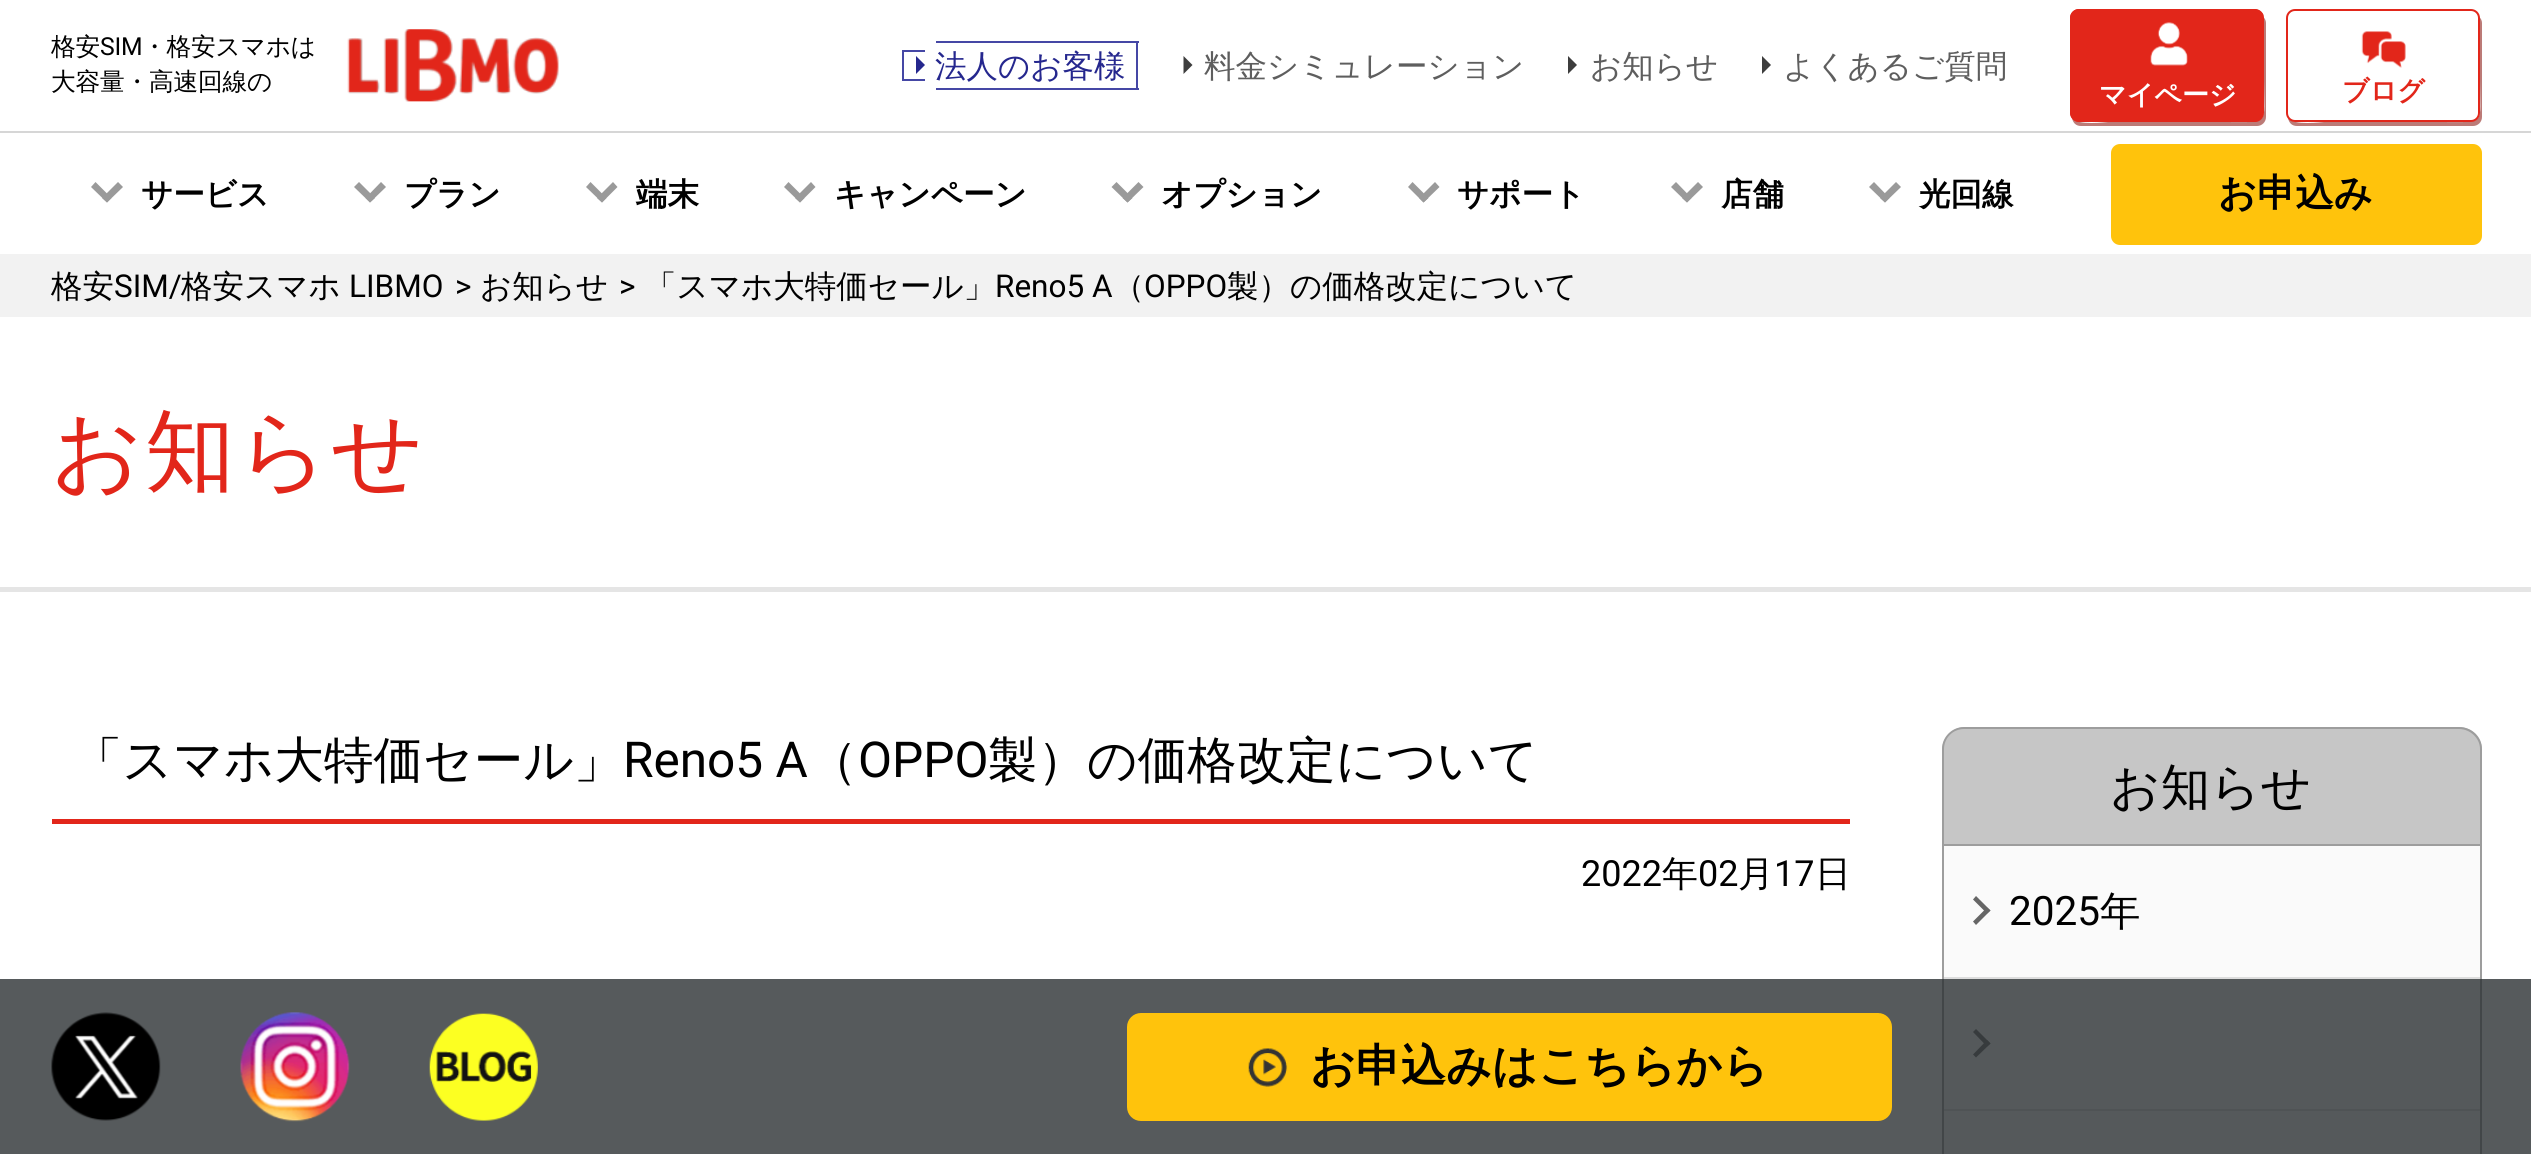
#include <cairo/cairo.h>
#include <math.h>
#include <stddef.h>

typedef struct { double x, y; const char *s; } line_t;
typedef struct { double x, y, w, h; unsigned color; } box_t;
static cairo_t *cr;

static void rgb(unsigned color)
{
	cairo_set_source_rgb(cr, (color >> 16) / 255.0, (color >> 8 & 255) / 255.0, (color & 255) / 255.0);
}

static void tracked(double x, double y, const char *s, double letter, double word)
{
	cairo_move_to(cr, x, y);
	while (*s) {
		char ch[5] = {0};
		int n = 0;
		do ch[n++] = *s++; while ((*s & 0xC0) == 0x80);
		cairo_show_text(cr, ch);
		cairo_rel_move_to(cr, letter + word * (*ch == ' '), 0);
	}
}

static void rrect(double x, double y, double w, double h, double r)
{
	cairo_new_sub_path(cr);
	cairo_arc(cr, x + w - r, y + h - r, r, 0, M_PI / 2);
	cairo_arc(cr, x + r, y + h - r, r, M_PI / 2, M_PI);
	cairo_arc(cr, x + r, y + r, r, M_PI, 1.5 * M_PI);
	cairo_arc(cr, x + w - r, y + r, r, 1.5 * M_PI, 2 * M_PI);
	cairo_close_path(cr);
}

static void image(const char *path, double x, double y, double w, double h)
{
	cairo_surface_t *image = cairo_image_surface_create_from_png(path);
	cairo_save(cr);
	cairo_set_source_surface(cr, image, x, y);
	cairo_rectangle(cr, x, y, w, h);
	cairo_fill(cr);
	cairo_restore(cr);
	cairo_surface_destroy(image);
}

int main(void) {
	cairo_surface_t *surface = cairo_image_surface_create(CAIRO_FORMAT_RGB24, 2531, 1154);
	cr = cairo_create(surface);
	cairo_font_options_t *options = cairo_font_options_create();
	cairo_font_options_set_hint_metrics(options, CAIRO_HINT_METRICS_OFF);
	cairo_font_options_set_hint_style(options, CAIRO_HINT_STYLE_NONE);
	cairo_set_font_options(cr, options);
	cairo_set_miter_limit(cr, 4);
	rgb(0xffffff);
	cairo_paint(cr);
	rgb(0xd6d6d6);
	cairo_rectangle(cr, 0, 131, 2531, 2);
	cairo_fill(cr);
	image("img/1.png", 347, 29, 212, 73);
	{
		static const box_t items[] = {
			{902, 50, 23, 2, 0x4547a5},
			{902, 79, 23, 2, 0x4547a5},
			{902, 50, 2, 31, 0x4547a5},
			{936, 41, 203, 2, 0x4547a5},
			{1136, 41, 2, 49, 0x4547a5},
			{936, 88, 203, 2, 0x4547a5},
		};
		for (size_t i = 0; i < sizeof items / sizeof *items; i++) {
			rgb(items[i].color);
			cairo_rectangle(cr, items[i].x, items[i].y, items[i].w, items[i].h);
			cairo_fill(cr);
		}
	}
	rgb(0x25278e);
	cairo_new_path(cr);
	cairo_move_to(cr, 916, 74);
	cairo_line_to(cr, 916, 56);
	cairo_line_to(cr, 925, 65);
	cairo_close_path(cr);
	cairo_fill(cr);
	rgb(0x3d3d3d);
	cairo_new_path(cr);
	cairo_move_to(cr, 1183.5, 74);
	cairo_line_to(cr, 1183.5, 56);
	cairo_line_to(cr, 1192.5, 65);
	cairo_close_path(cr);
	cairo_fill(cr);
	cairo_new_path(cr);
	cairo_move_to(cr, 1568, 74);
	cairo_line_to(cr, 1568, 56);
	cairo_line_to(cr, 1577, 65);
	cairo_close_path(cr);
	cairo_fill(cr);
	cairo_new_path(cr);
	cairo_move_to(cr, 1762, 74);
	cairo_line_to(cr, 1762, 56);
	cairo_line_to(cr, 1771, 65);
	cairo_close_path(cr);
	cairo_fill(cr);
	rgb(0xbc7b77);
	cairo_new_path(cr);
	cairo_move_to(cr, 2072, 118);
	cairo_curve_to(cr, 2073, 123, 2076, 126, 2081, 126);
	cairo_line_to(cr, 2257, 126);
	cairo_curve_to(cr, 2262, 126, 2266, 122, 2266, 117);
	cairo_line_to(cr, 2266, 23);
	cairo_curve_to(cr, 2266, 21, 2265, 18, 2263, 17);
	cairo_line_to(cr, 2264, 81);
	cairo_curve_to(cr, 2264, 126, 2271, 122, 2225, 122);
	cairo_line_to(cr, 2108, 122);
	cairo_curve_to(cr, 2106, 122, 2078, 126, 2072, 118);
	cairo_close_path(cr);
	cairo_fill(cr);
	rgb(0xe2261a);
	rrect(2070, 9, 194, 113, 9);
	cairo_fill(cr);
	cairo_set_fill_rule(cr, CAIRO_FILL_RULE_EVEN_ODD);
	cairo_new_path(cr);
	cairo_move_to(cr, 2079, 9);
	cairo_line_to(cr, 2254, 9);
	cairo_curve_to(cr, 2259, 9, 2264, 13, 2264, 18);
	cairo_line_to(cr, 2264, 112);
	cairo_curve_to(cr, 2264, 117, 2259, 122, 2254, 122);
	cairo_line_to(cr, 2079, 122);
	cairo_curve_to(cr, 2074, 122, 2070, 117, 2070, 112);
	cairo_line_to(cr, 2070, 18);
	cairo_curve_to(cr, 2070, 13, 2074, 9, 2079, 9);
	cairo_close_path(cr);
	cairo_move_to(cr, 2079, 11);
	cairo_line_to(cr, 2254, 11);
	cairo_curve_to(cr, 2259, 11, 2264, 14, 2264, 18);
	cairo_line_to(cr, 2264, 112);
	cairo_curve_to(cr, 2264, 116, 2259, 119, 2254, 119);
	cairo_line_to(cr, 2079, 119);
	cairo_curve_to(cr, 2075, 119, 2072, 116, 2072, 112);
	cairo_line_to(cr, 2072, 18);
	cairo_curve_to(cr, 2072, 14, 2075, 11, 2079, 11);
	cairo_close_path(cr);
	cairo_fill(cr);
	image("img/2.png", 2150, 22, 38, 44);
	rgb(0xbc7b77);
	cairo_set_fill_rule(cr, CAIRO_FILL_RULE_WINDING);
	cairo_new_path(cr);
	cairo_move_to(cr, 2288, 118);
	cairo_curve_to(cr, 2289, 123, 2292, 126, 2297, 126);
	cairo_line_to(cr, 2473, 126);
	cairo_curve_to(cr, 2478, 126, 2482, 122, 2482, 117);
	cairo_line_to(cr, 2482, 23);
	cairo_curve_to(cr, 2482, 21, 2481, 18, 2479, 17);
	cairo_line_to(cr, 2480, 81);
	cairo_curve_to(cr, 2480, 126, 2487, 122, 2441, 122);
	cairo_line_to(cr, 2324, 122);
	cairo_curve_to(cr, 2322, 122, 2294, 126, 2288, 118);
	cairo_close_path(cr);
	cairo_fill(cr);
	rgb(0xffffff);
	rrect(2287, 10, 192, 111, 8);
	cairo_fill_preserve(cr);
	rgb(0xe2261a);
	cairo_stroke(cr);
	image("img/3.png", 2361, 31, 45, 37);
	rgb(0x9a9a9a);
	cairo_new_path(cr);
	cairo_move_to(cr, 123, 187);
	cairo_line_to(cr, 107, 202.5);
	cairo_line_to(cr, 102, 198);
	cairo_line_to(cr, 118, 182);
	cairo_close_path(cr);
	cairo_fill(cr);
	cairo_new_path(cr);
	cairo_move_to(cr, 111.5, 198);
	cairo_line_to(cr, 107, 202.5);
	cairo_line_to(cr, 91, 187);
	cairo_line_to(cr, 95.5, 182);
	cairo_close_path(cr);
	cairo_fill(cr);
	cairo_new_path(cr);
	cairo_move_to(cr, 386, 187);
	cairo_line_to(cr, 370, 202.5);
	cairo_line_to(cr, 365.5, 198);
	cairo_line_to(cr, 381, 182);
	cairo_close_path(cr);
	cairo_fill(cr);
	cairo_new_path(cr);
	cairo_move_to(cr, 375, 198);
	cairo_line_to(cr, 370, 202.5);
	cairo_line_to(cr, 354, 187);
	cairo_line_to(cr, 359, 182);
	cairo_close_path(cr);
	cairo_fill(cr);
	cairo_new_path(cr);
	cairo_move_to(cr, 617.5, 187);
	cairo_line_to(cr, 602, 202.5);
	cairo_line_to(cr, 597, 198);
	cairo_line_to(cr, 613, 182);
	cairo_close_path(cr);
	cairo_fill(cr);
	cairo_new_path(cr);
	cairo_move_to(cr, 606.5, 198);
	cairo_line_to(cr, 602, 202.5);
	cairo_line_to(cr, 586, 187);
	cairo_line_to(cr, 590.5, 182);
	cairo_close_path(cr);
	cairo_fill(cr);
	cairo_new_path(cr);
	cairo_move_to(cr, 815.5, 187);
	cairo_line_to(cr, 800, 202.5);
	cairo_line_to(cr, 795, 198);
	cairo_line_to(cr, 811, 182);
	cairo_close_path(cr);
	cairo_fill(cr);
	cairo_new_path(cr);
	cairo_move_to(cr, 804.5, 198);
	cairo_line_to(cr, 800, 202.5);
	cairo_line_to(cr, 784, 187);
	cairo_line_to(cr, 788.5, 182);
	cairo_close_path(cr);
	cairo_fill(cr);
	cairo_new_path(cr);
	cairo_move_to(cr, 1143.5, 187);
	cairo_line_to(cr, 1127.5, 202.5);
	cairo_line_to(cr, 1122.5, 198);
	cairo_line_to(cr, 1138.5, 182);
	cairo_close_path(cr);
	cairo_fill(cr);
	cairo_new_path(cr);
	cairo_move_to(cr, 1132.5, 198);
	cairo_line_to(cr, 1127.5, 202.5);
	cairo_line_to(cr, 1111.5, 187);
	cairo_line_to(cr, 1116.5, 182);
	cairo_close_path(cr);
	cairo_fill(cr);
	cairo_new_path(cr);
	cairo_move_to(cr, 1439.5, 187);
	cairo_line_to(cr, 1423.5, 202.5);
	cairo_line_to(cr, 1419, 198);
	cairo_line_to(cr, 1435, 182);
	cairo_close_path(cr);
	cairo_fill(cr);
	cairo_new_path(cr);
	cairo_move_to(cr, 1428.5, 198);
	cairo_line_to(cr, 1423.5, 202.5);
	cairo_line_to(cr, 1408, 187);
	cairo_line_to(cr, 1412.5, 182);
	cairo_close_path(cr);
	cairo_fill(cr);
	cairo_new_path(cr);
	cairo_move_to(cr, 1703, 187);
	cairo_line_to(cr, 1687, 202.5);
	cairo_line_to(cr, 1682, 198);
	cairo_line_to(cr, 1698, 182);
	cairo_close_path(cr);
	cairo_fill(cr);
	cairo_new_path(cr);
	cairo_move_to(cr, 1691.5, 198);
	cairo_line_to(cr, 1687, 202.5);
	cairo_line_to(cr, 1671, 187);
	cairo_line_to(cr, 1676, 182);
	cairo_close_path(cr);
	cairo_fill(cr);
	cairo_new_path(cr);
	cairo_move_to(cr, 1901, 187);
	cairo_line_to(cr, 1885, 202.5);
	cairo_line_to(cr, 1880, 198);
	cairo_line_to(cr, 1896, 182);
	cairo_close_path(cr);
	cairo_fill(cr);
	cairo_new_path(cr);
	cairo_move_to(cr, 1889.5, 198);
	cairo_line_to(cr, 1885, 202.5);
	cairo_line_to(cr, 1869, 187);
	cairo_line_to(cr, 1874, 182);
	cairo_close_path(cr);
	cairo_fill(cr);
	rgb(0xffc30c);
	rrect(2111, 144, 371, 101, 9);
	cairo_fill(cr);
	{
		static const box_t items[] = {
			{0, 254, 2531, 63, 0xf2f2f2},
			{0, 587, 2531, 5, 0xe5e5e5},
			{52, 819, 1798, 5, 0xe2261a},
		};
		for (size_t i = 0; i < sizeof items / sizeof *items; i++) {
			rgb(items[i].color);
			cairo_rectangle(cr, items[i].x, items[i].y, items[i].w, items[i].h);
			cairo_fill(cr);
		}
	}
	rgb(0xc6c6c6);
	cairo_new_path(cr);
	cairo_move_to(cr, 1965, 727);
	cairo_line_to(cr, 2459, 727);
	cairo_curve_to(cr, 2471.5, 727, 2482, 737.5, 2482, 750);
	cairo_line_to(cr, 2482, 846);
	cairo_line_to(cr, 1942, 846);
	cairo_line_to(cr, 1942, 750);
	cairo_curve_to(cr, 1942, 737.5, 1952.5, 727, 1965, 727);
	cairo_close_path(cr);
	cairo_fill(cr);
	rgb(0x9d9d9d);
	cairo_set_fill_rule(cr, CAIRO_FILL_RULE_EVEN_ODD);
	cairo_new_path(cr);
	cairo_move_to(cr, 1964, 727);
	cairo_line_to(cr, 2459, 727);
	cairo_curve_to(cr, 2472, 727, 2482, 737, 2482, 749);
	cairo_line_to(cr, 2482, 846);
	cairo_line_to(cr, 1942, 846);
	cairo_line_to(cr, 1942, 749);
	cairo_curve_to(cr, 1942, 737, 1952, 727, 1964, 727);
	cairo_close_path(cr);
	cairo_move_to(cr, 1964, 729);
	cairo_line_to(cr, 2459, 729);
	cairo_curve_to(cr, 2470, 729, 2480, 738, 2480, 749);
	cairo_line_to(cr, 2480, 846);
	cairo_line_to(cr, 1944, 846);
	cairo_line_to(cr, 1944, 749);
	cairo_curve_to(cr, 1944, 738, 1953, 729, 1964, 729);
	cairo_close_path(cr);
	cairo_fill(cr);
	rgb(0xfafafa);
	cairo_rectangle(cr, 1943, 845, 538, 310);
	cairo_fill_preserve(cr);
	rgb(0x9d9d9d);
	cairo_stroke(cr);
	rgb(0xdddddd);
	cairo_rectangle(cr, 1944, 977, 536, 2);
	cairo_fill(cr);
	rgb(0x666666);
	cairo_set_fill_rule(cr, CAIRO_FILL_RULE_WINDING);
	cairo_new_path(cr);
	cairo_move_to(cr, 1976, 896);
	cairo_line_to(cr, 1990.5, 910.5);
	cairo_line_to(cr, 1987, 913.5);
	cairo_line_to(cr, 1973, 899.5);
	cairo_close_path(cr);
	cairo_fill(cr);
	cairo_new_path(cr);
	cairo_move_to(cr, 1987, 907.5);
	cairo_line_to(cr, 1990.5, 910.5);
	cairo_line_to(cr, 1976, 925);
	cairo_line_to(cr, 1973, 921.5);
	cairo_close_path(cr);
	cairo_fill(cr);
	rgb(0xdddddd);
	cairo_rectangle(cr, 1944, 1109, 536, 2);
	cairo_fill(cr);
	rgb(0x666666);
	cairo_new_path(cr);
	cairo_move_to(cr, 1976, 1029);
	cairo_line_to(cr, 1990.5, 1043.5);
	cairo_line_to(cr, 1987, 1046.5);
	cairo_line_to(cr, 1973, 1032);
	cairo_close_path(cr);
	cairo_fill(cr);
	cairo_new_path(cr);
	cairo_move_to(cr, 1987, 1040);
	cairo_line_to(cr, 1990.5, 1043.5);
	cairo_line_to(cr, 1976, 1057.5);
	cairo_line_to(cr, 1973, 1054.5);
	cairo_close_path(cr);
	cairo_fill(cr);
	cairo_set_source_rgba(cr, 0.173, 0.192, 0.204, 0.8);
	cairo_rectangle(cr, 0, 979, 2531, 175);
	cairo_fill(cr);
	image("img/4.png", 51, 1012, 110, 109);
	image("img/5.png", 240, 1012, 110, 110);
	image("img/6.png", 429, 1013, 109, 108);
	rgb(0xffc30c);
	rrect(1127, 1013, 765, 108, 14);
	cairo_fill(cr);
	image("img/7.png", 1248, 1048, 40, 39);
	cairo_select_font_face(cr, "WenQuanYi Zen Hei Medium", CAIRO_FONT_SLANT_NORMAL, CAIRO_FONT_WEIGHT_NORMAL);
	cairo_set_font_size(cr, 24.75);
	rgb(0x000000);
	tracked(51, 55, "格安", -0.25, 0);
	cairo_select_font_face(cr, "Roboto", CAIRO_FONT_SLANT_NORMAL, CAIRO_FONT_WEIGHT_NORMAL);
	tracked(100, 55, "SIM", -0.25, 0);
	cairo_select_font_face(cr, "WenQuanYi Zen Hei Medium", CAIRO_FONT_SLANT_NORMAL, CAIRO_FONT_WEIGHT_NORMAL);
	tracked(142, 55, "・格安スマホは", -0.25, 0);
	tracked(51, 90, "大容量・高速回線の", -0.25, 0);
	cairo_set_font_size(cr, 31.5);
	rgb(0x25278e);
	cairo_move_to(cr, 935, 77);
	cairo_show_text(cr, "法人のお客様");
	rgb(0x5e5e5e);
	{
		static const line_t items[] = {
			{1204, 77, "料金シミュレーション"},
			{1590, 77, "お知らせ"},
			{1783, 77, "よくあるご質問"},
		};
		for (size_t i = 0; i < sizeof items / sizeof *items; i++) {
			cairo_move_to(cr, items[i].x, items[i].y);
			cairo_show_text(cr, items[i].s);
		}
	}
	cairo_select_font_face(cr, "WenQuanYi Zen Hei", CAIRO_FONT_SLANT_NORMAL, CAIRO_FONT_WEIGHT_BOLD);
	cairo_set_font_size(cr, 27);
	rgb(0xffffff);
	cairo_move_to(cr, 2099, 104);
	cairo_show_text(cr, "マイページ");
	rgb(0xe2261a);
	cairo_move_to(cr, 2342, 100);
	cairo_show_text(cr, "ブログ");
	cairo_set_font_size(cr, 31.5);
	rgb(0x000000);
	{
		static const line_t items[] = {
			{141, 205, "サービス"},
			{404, 205, "プラン"},
			{636, 205, "端末"},
			{834, 205, "キャンペーン"},
			{1161, 205, "オプション"},
			{1457, 205, "サポート"},
			{1721, 205, "店舗"},
			{1919, 205, "光回線"},
		};
		for (size_t i = 0; i < sizeof items / sizeof *items; i++) {
			cairo_move_to(cr, items[i].x, items[i].y);
			cairo_show_text(cr, items[i].s);
		}
	}
	cairo_set_font_size(cr, 38.25);
	cairo_move_to(cr, 2218, 206);
	cairo_show_text(cr, "お申込み");
	cairo_select_font_face(cr, "WenQuanYi Zen Hei Medium", CAIRO_FONT_SLANT_NORMAL, CAIRO_FONT_WEIGHT_NORMAL);
	cairo_set_font_size(cr, 31.5);
	cairo_move_to(cr, 51, 297);
	cairo_show_text(cr, "格安");
	cairo_select_font_face(cr, "Roboto", CAIRO_FONT_SLANT_NORMAL, CAIRO_FONT_WEIGHT_NORMAL);
	cairo_move_to(cr, 114, 297);
	cairo_show_text(cr, "SIM/");
	cairo_select_font_face(cr, "WenQuanYi Zen Hei Medium", CAIRO_FONT_SLANT_NORMAL, CAIRO_FONT_WEIGHT_NORMAL);
	cairo_move_to(cr, 181, 297);
	cairo_show_text(cr, "格安スマホ");
	cairo_select_font_face(cr, "Roboto", CAIRO_FONT_SLANT_NORMAL, CAIRO_FONT_WEIGHT_NORMAL);
	cairo_move_to(cr, 349, 297);
	cairo_show_text(cr, "LIBMO");
	cairo_move_to(cr, 455, 297);
	cairo_show_text(cr, ">");
	cairo_select_font_face(cr, "WenQuanYi Zen Hei Medium", CAIRO_FONT_SLANT_NORMAL, CAIRO_FONT_WEIGHT_NORMAL);
	cairo_move_to(cr, 480, 297);
	cairo_show_text(cr, "お知らせ");
	cairo_select_font_face(cr, "Roboto", CAIRO_FONT_SLANT_NORMAL, CAIRO_FONT_WEIGHT_NORMAL);
	cairo_move_to(cr, 619, 297);
	cairo_show_text(cr, ">");
	cairo_select_font_face(cr, "WenQuanYi Zen Hei Medium", CAIRO_FONT_SLANT_NORMAL, CAIRO_FONT_WEIGHT_NORMAL);
	cairo_move_to(cr, 645, 297);
	cairo_show_text(cr, "「スマホ大特価セール」");
	cairo_select_font_face(cr, "Roboto", CAIRO_FONT_SLANT_NORMAL, CAIRO_FONT_WEIGHT_NORMAL);
	cairo_move_to(cr, 995, 297);
	cairo_show_text(cr, "Reno5 A");
	cairo_select_font_face(cr, "WenQuanYi Zen Hei Medium", CAIRO_FONT_SLANT_NORMAL, CAIRO_FONT_WEIGHT_NORMAL);
	cairo_move_to(cr, 1113, 297);
	cairo_show_text(cr, "（");
	cairo_select_font_face(cr, "Roboto", CAIRO_FONT_SLANT_NORMAL, CAIRO_FONT_WEIGHT_NORMAL);
	cairo_move_to(cr, 1144, 297);
	cairo_show_text(cr, "OPPO");
	cairo_select_font_face(cr, "WenQuanYi Zen Hei Medium", CAIRO_FONT_SLANT_NORMAL, CAIRO_FONT_WEIGHT_NORMAL);
	cairo_move_to(cr, 1227, 297);
	cairo_show_text(cr, "製）の価格改定について");
	cairo_set_font_size(cr, 90);
	rgb(0xe2261a);
	tracked(51, 482, "お知らせ", 2, 0);
	cairo_set_font_size(cr, 49.5);
	rgb(0x000000);
	cairo_move_to(cr, 73, 777);
	cairo_show_text(cr, "「スマホ大特価セール」");
	cairo_select_font_face(cr, "Roboto", CAIRO_FONT_SLANT_NORMAL, CAIRO_FONT_WEIGHT_NORMAL);
	cairo_move_to(cr, 623, 777);
	cairo_show_text(cr, "Reno5 A");
	cairo_select_font_face(cr, "WenQuanYi Zen Hei Medium", CAIRO_FONT_SLANT_NORMAL, CAIRO_FONT_WEIGHT_NORMAL);
	cairo_move_to(cr, 808, 777);
	cairo_show_text(cr, "（");
	cairo_select_font_face(cr, "Roboto", CAIRO_FONT_SLANT_NORMAL, CAIRO_FONT_WEIGHT_NORMAL);
	cairo_move_to(cr, 858, 777);
	cairo_show_text(cr, "OPPO");
	cairo_select_font_face(cr, "WenQuanYi Zen Hei Medium", CAIRO_FONT_SLANT_NORMAL, CAIRO_FONT_WEIGHT_NORMAL);
	cairo_move_to(cr, 988, 777);
	cairo_show_text(cr, "製）の価格改定について");
	cairo_select_font_face(cr, "Roboto", CAIRO_FONT_SLANT_NORMAL, CAIRO_FONT_WEIGHT_NORMAL);
	cairo_set_font_size(cr, 36);
	cairo_move_to(cr, 1581, 886);
	cairo_show_text(cr, "2022");
	cairo_select_font_face(cr, "WenQuanYi Zen Hei Medium", CAIRO_FONT_SLANT_NORMAL, CAIRO_FONT_WEIGHT_NORMAL);
	cairo_move_to(cr, 1662, 886);
	cairo_show_text(cr, "年");
	cairo_select_font_face(cr, "Roboto", CAIRO_FONT_SLANT_NORMAL, CAIRO_FONT_WEIGHT_NORMAL);
	cairo_move_to(cr, 1698, 886);
	cairo_show_text(cr, "02");
	cairo_select_font_face(cr, "WenQuanYi Zen Hei Medium", CAIRO_FONT_SLANT_NORMAL, CAIRO_FONT_WEIGHT_NORMAL);
	cairo_move_to(cr, 1738, 886);
	cairo_show_text(cr, "月");
	cairo_select_font_face(cr, "Roboto", CAIRO_FONT_SLANT_NORMAL, CAIRO_FONT_WEIGHT_NORMAL);
	cairo_move_to(cr, 1774, 886);
	cairo_show_text(cr, "17");
	cairo_select_font_face(cr, "WenQuanYi Zen Hei Medium", CAIRO_FONT_SLANT_NORMAL, CAIRO_FONT_WEIGHT_NORMAL);
	cairo_move_to(cr, 1815, 886);
	cairo_show_text(cr, "日");
	cairo_set_font_size(cr, 49.5);
	cairo_move_to(cr, 2110, 804);
	cairo_show_text(cr, "お知らせ");
	cairo_select_font_face(cr, "Roboto", CAIRO_FONT_SLANT_NORMAL, CAIRO_FONT_WEIGHT_NORMAL);
	cairo_set_font_size(cr, 40.5);
	cairo_move_to(cr, 2009, 925);
	cairo_show_text(cr, "2025");
	cairo_select_font_face(cr, "WenQuanYi Zen Hei Medium", CAIRO_FONT_SLANT_NORMAL, CAIRO_FONT_WEIGHT_NORMAL);
	cairo_move_to(cr, 2100, 925);
	cairo_show_text(cr, "年");
	cairo_select_font_face(cr, "WenQuanYi Zen Hei", CAIRO_FONT_SLANT_NORMAL, CAIRO_FONT_WEIGHT_BOLD);
	cairo_set_font_size(cr, 45);
	cairo_move_to(cr, 1310, 1081);
	cairo_show_text(cr, "お申込みはこちらから");
	cairo_surface_write_to_png(surface, "page.png");
	cairo_font_options_destroy(options);
	cairo_destroy(cr);
	cairo_surface_destroy(surface);
	return 0;
}
